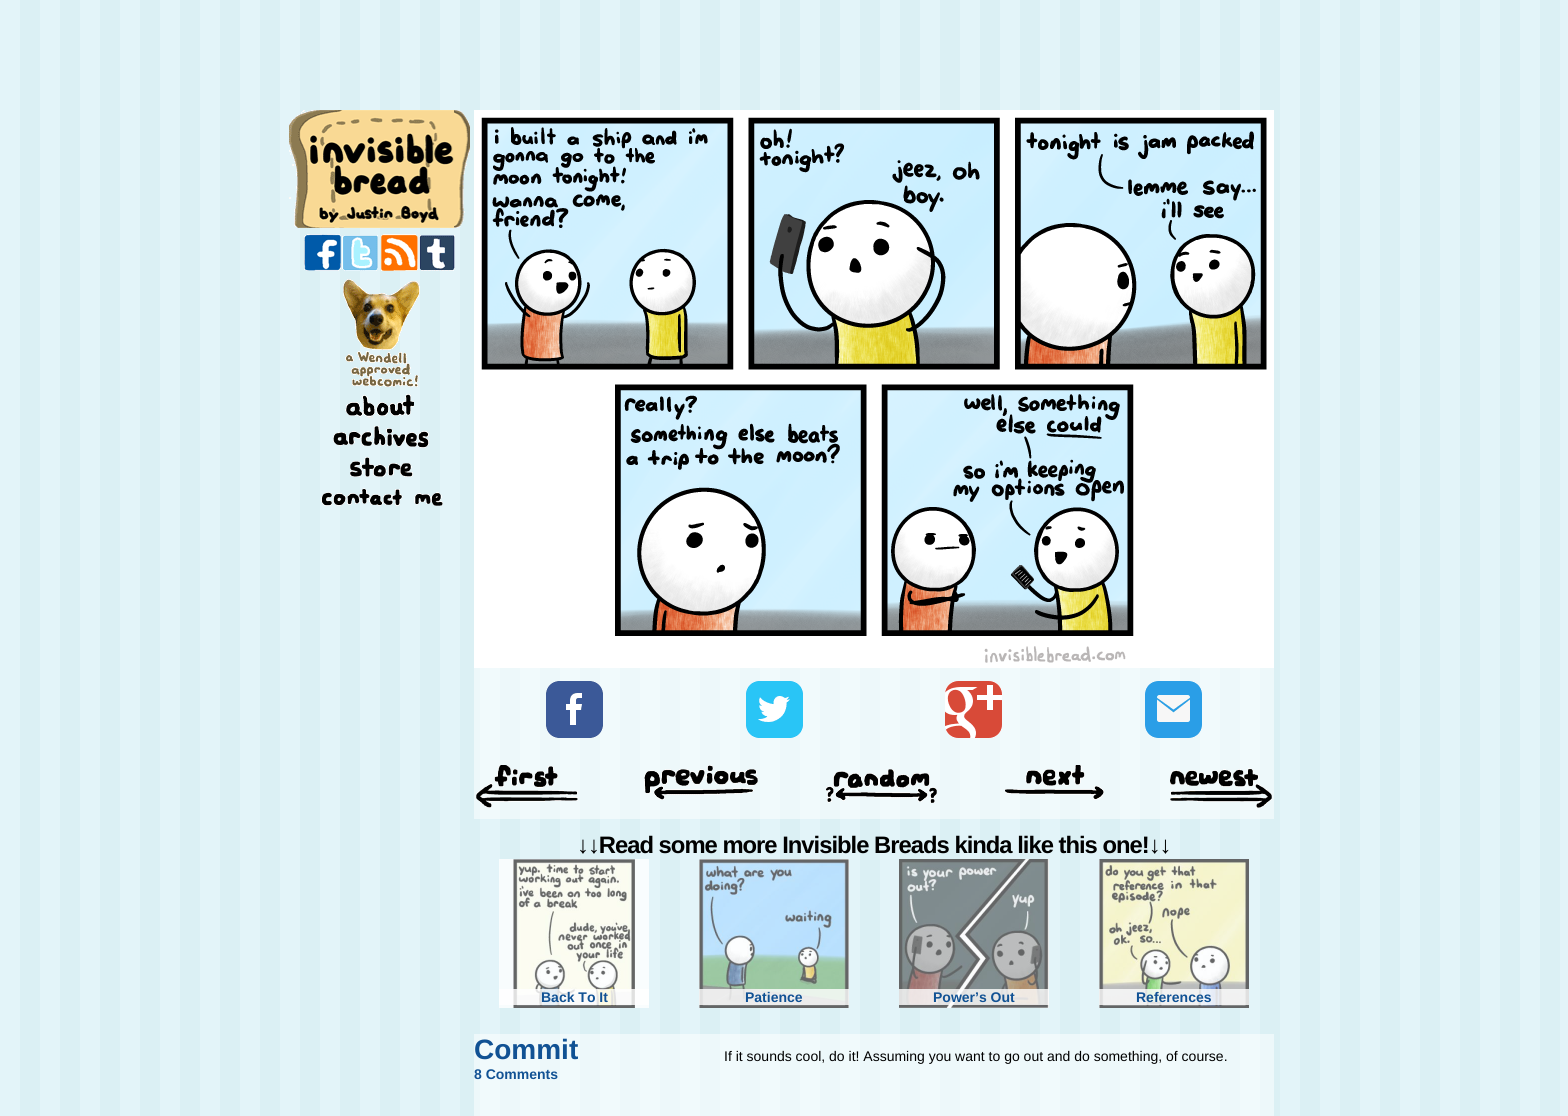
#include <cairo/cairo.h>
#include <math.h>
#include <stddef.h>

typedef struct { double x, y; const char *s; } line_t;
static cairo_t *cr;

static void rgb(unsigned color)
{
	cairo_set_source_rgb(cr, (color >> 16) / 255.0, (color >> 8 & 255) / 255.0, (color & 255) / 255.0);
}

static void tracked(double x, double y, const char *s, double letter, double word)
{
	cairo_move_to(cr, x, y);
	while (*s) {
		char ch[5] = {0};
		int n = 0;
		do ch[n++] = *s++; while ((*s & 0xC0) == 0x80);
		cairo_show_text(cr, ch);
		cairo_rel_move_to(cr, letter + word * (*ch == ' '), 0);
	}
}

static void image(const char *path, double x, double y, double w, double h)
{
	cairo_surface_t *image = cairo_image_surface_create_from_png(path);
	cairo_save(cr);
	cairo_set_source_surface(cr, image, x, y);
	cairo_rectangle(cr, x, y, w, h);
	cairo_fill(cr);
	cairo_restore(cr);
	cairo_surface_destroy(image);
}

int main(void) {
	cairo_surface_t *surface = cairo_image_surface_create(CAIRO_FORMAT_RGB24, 1568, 1116);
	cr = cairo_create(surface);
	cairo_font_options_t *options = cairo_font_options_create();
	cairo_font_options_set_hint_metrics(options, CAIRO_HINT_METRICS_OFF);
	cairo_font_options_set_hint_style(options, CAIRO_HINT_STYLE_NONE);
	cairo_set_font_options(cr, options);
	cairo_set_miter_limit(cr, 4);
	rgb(0xe3f4f9);
	cairo_paint(cr);
	image("img/1.png", 20, 0, 1540, 1116);
	image("img/2.png", 289, 110, 165, 118);
	image("img/3.png", 454, 110, 16, 118);
	image("img/4.png", 304, 234, 37, 37);
	image("img/5.png", 342, 235, 36, 36);
	image("img/6.png", 381, 234, 37, 37);
	image("img/7.png", 419, 235, 36, 36);
	image("img/8.png", 345, 394, 69, 24);
	image("img/9.png", 333, 426, 96, 22);
	image("img/10.png", 350, 457, 63, 20);
	image("img/11.png", 321, 488, 122, 18);
	image("img/12.png", 343, 279, 77, 108);
	rgb(0xffffff);
	cairo_rectangle(cr, 474, 663, 800, 5);
	cairo_fill(cr);
	image("img/13.png", 474, 110, 800, 553);
	cairo_set_source_rgba(cr, 1, 1, 1, 0.5);
	cairo_rectangle(cr, 474, 668, 800, 86);
	cairo_fill(cr);
	image("img/14.png", 546, 681, 57, 57);
	image("img/15.png", 746, 681, 57, 57);
	image("img/16.png", 945, 681, 57, 57);
	image("img/17.png", 1145, 681, 57, 57);
	cairo_rectangle(cr, 474, 754, 800, 65);
	cairo_fill(cr);
	image("img/18.png", 476, 765, 102, 43);
	image("img/19.png", 644, 765, 114, 35);
	image("img/20.png", 826, 769, 111, 34);
	image("img/21.png", 1005, 765, 99, 35);
	image("img/22.png", 1170, 768, 102, 40);
	cairo_set_source_rgba(cr, 1, 1, 1, 0.8);
	cairo_rectangle(cr, 499, 859, 150, 149);
	cairo_fill(cr);
	image("img/23.png", 513, 859, 122, 149);
	cairo_rectangle(cr, 499, 989, 150, 16);
	cairo_fill(cr);
	cairo_rectangle(cr, 699, 859, 150, 149);
	cairo_fill(cr);
	image("img/24.png", 699, 859, 150, 149);
	cairo_rectangle(cr, 699, 989, 150, 16);
	cairo_fill(cr);
	cairo_rectangle(cr, 899, 859, 150, 149);
	cairo_fill(cr);
	image("img/25.png", 899, 859, 150, 149);
	cairo_rectangle(cr, 899, 989, 150, 16);
	cairo_fill(cr);
	cairo_rectangle(cr, 1099, 859, 150, 149);
	cairo_fill(cr);
	image("img/26.png", 1099, 859, 150, 149);
	cairo_rectangle(cr, 1099, 989, 150, 16);
	cairo_fill(cr);
	cairo_set_source_rgba(cr, 1, 1, 1, 0.5);
	cairo_rectangle(cr, 474, 1034, 800, 82);
	cairo_fill(cr);
	cairo_select_font_face(cr, "Liberation Sans", CAIRO_FONT_SLANT_NORMAL, CAIRO_FONT_WEIGHT_BOLD);
	cairo_set_font_size(cr, 23.8);
	rgb(0x000000);
	tracked(577, 853, "↓↓Read some more Invisible Breads kinda like this one!↓↓", -1, 0);
	cairo_set_font_size(cr, 14);
	rgb(0x115294);
	{
		static const line_t items[] = {
			{541, 1002, "Back To It"},
			{745, 1002, "Patience"},
			{933, 1002, "Power’s Out"},
			{1136, 1002, "References"},
		};
		for (size_t i = 0; i < sizeof items / sizeof *items; i++) {
			cairo_move_to(cr, items[i].x, items[i].y);
			cairo_show_text(cr, items[i].s);
		}
	}
	cairo_set_font_size(cr, 28);
	cairo_move_to(cr, 474, 1059);
	cairo_show_text(cr, "Commit");
	cairo_set_font_size(cr, 14);
	cairo_move_to(cr, 474, 1079);
	cairo_show_text(cr, "8 Comments");
	cairo_select_font_face(cr, "Liberation Sans", CAIRO_FONT_SLANT_NORMAL, CAIRO_FONT_WEIGHT_NORMAL);
	rgb(0x000000);
	cairo_move_to(cr, 724, 1061);
	cairo_show_text(cr, "If it sounds cool, do it! Assuming you want to go out and do something, of course.");
	cairo_surface_write_to_png(surface, "page.png");
	cairo_font_options_destroy(options);
	cairo_destroy(cr);
	cairo_surface_destroy(surface);
	return 0;
}
